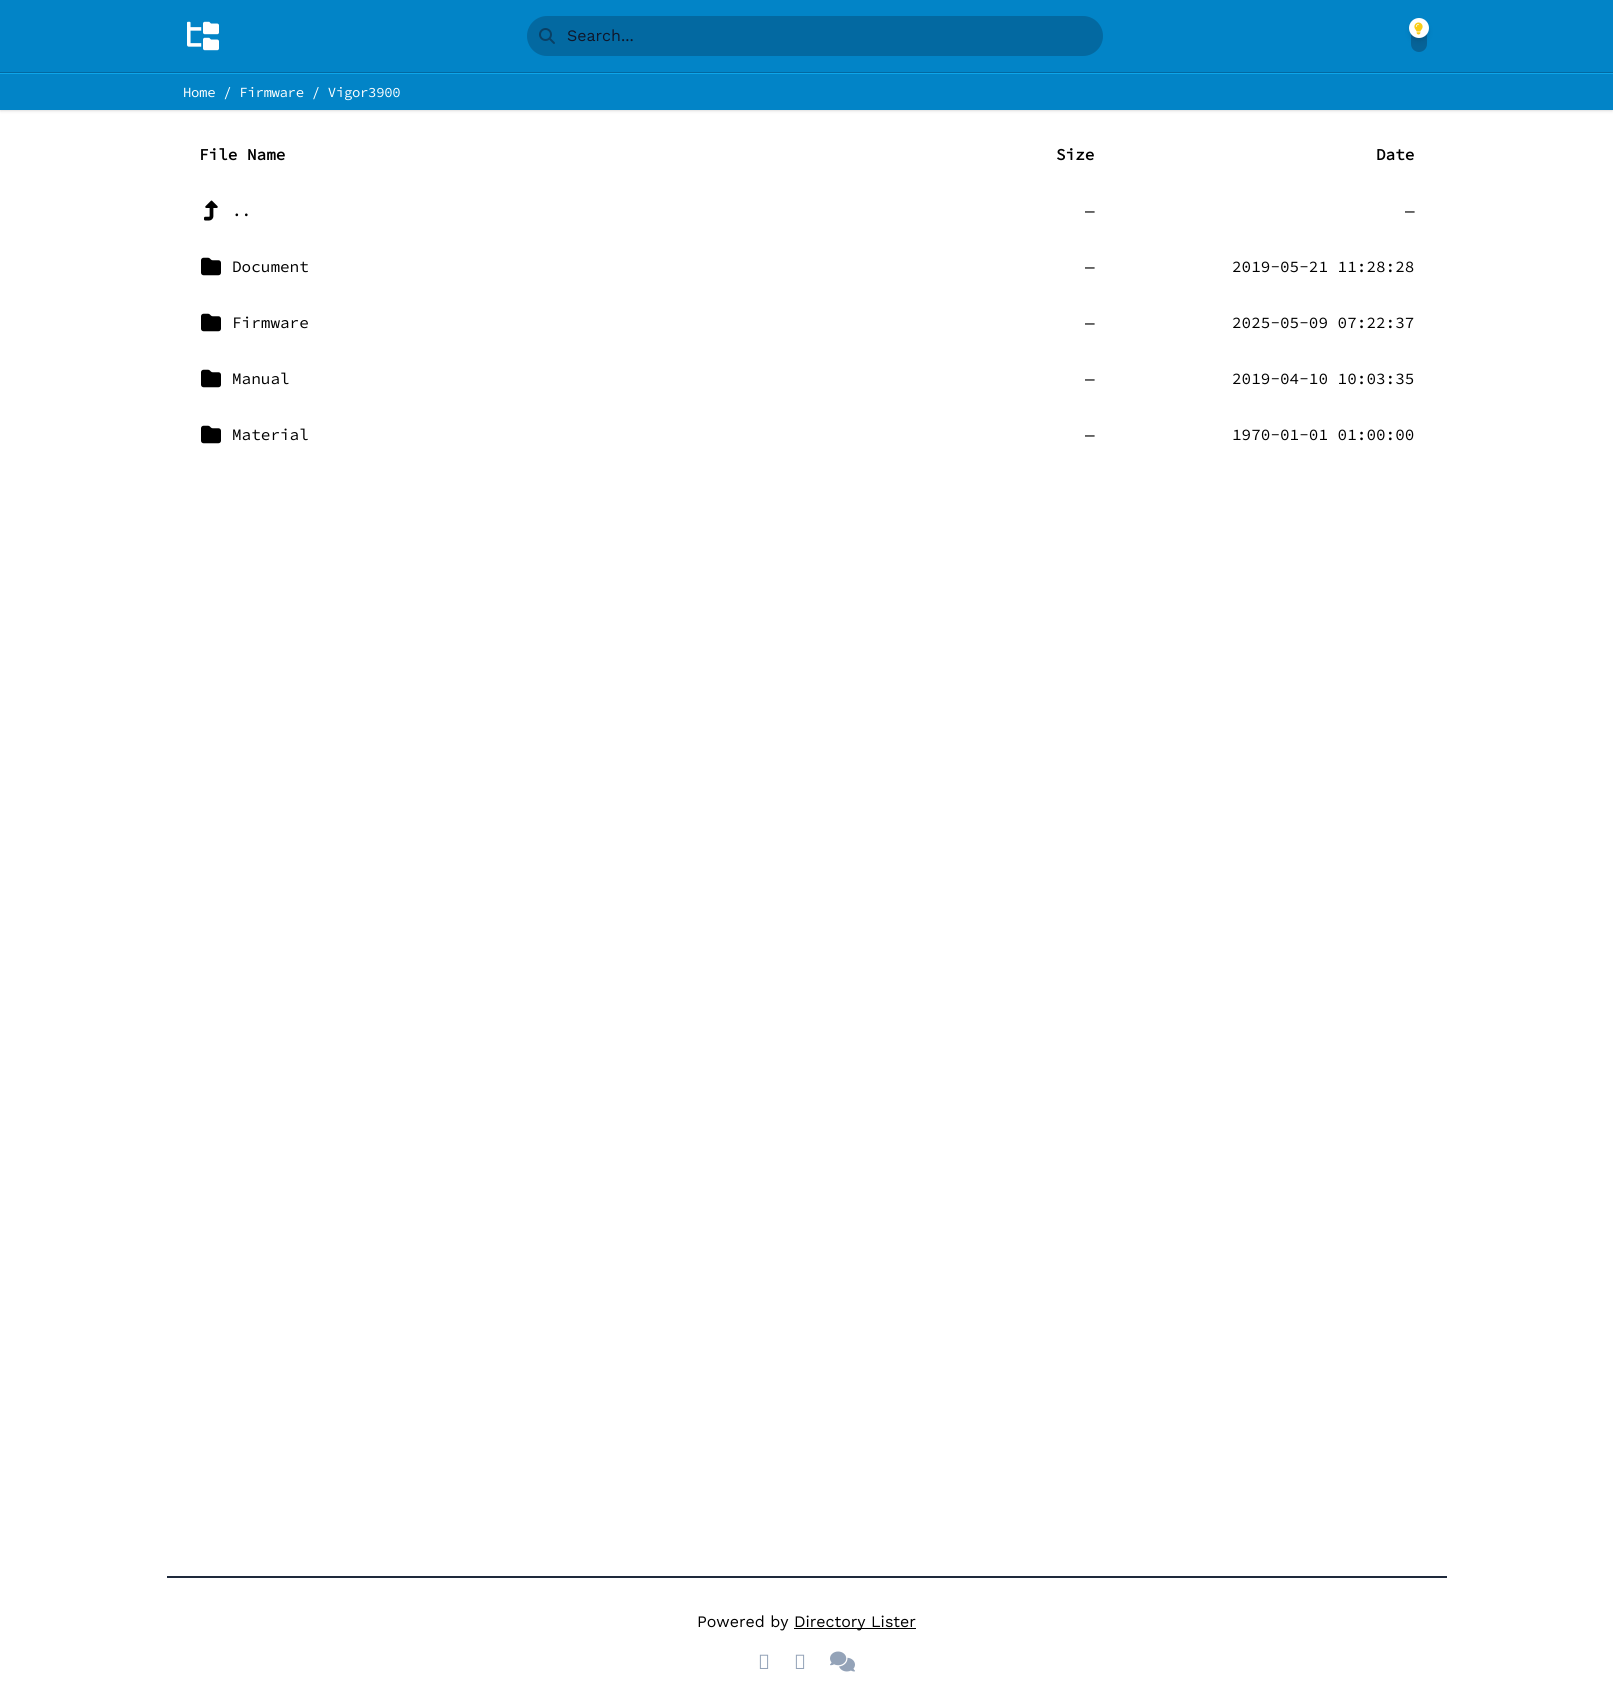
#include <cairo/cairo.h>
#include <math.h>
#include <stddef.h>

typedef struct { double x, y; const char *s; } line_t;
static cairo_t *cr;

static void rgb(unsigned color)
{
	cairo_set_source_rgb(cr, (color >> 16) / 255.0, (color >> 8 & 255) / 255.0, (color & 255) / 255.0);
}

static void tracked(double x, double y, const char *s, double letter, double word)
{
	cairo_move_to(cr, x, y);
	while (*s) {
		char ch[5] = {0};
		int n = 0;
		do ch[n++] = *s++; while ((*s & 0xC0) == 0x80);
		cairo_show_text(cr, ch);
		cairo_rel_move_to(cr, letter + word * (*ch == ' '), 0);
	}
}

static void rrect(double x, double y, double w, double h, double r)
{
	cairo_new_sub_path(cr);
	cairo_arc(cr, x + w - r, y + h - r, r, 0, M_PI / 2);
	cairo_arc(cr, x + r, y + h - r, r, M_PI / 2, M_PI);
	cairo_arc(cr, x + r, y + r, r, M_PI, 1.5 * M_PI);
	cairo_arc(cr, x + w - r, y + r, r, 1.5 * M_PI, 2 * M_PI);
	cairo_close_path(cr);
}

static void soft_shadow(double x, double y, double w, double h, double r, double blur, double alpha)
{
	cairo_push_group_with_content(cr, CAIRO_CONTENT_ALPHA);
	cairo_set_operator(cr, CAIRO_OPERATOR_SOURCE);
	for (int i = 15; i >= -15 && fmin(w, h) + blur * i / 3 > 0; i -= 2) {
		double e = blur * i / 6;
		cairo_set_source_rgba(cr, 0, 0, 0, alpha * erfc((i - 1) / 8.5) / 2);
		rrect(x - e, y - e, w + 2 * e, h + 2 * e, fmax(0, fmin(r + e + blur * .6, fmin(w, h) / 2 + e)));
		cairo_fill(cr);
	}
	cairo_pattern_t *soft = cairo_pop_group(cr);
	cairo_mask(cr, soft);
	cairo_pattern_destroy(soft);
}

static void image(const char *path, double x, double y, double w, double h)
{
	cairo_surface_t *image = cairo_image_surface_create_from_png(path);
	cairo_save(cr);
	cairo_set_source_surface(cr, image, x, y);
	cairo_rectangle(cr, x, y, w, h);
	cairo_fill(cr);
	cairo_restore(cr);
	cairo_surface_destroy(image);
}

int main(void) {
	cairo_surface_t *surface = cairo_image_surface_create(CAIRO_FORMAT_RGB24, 1613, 1706);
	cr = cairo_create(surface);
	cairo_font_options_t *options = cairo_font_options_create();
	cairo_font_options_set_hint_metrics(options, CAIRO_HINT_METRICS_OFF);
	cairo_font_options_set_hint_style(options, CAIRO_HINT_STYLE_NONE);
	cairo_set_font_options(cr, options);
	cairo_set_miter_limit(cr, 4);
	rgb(0xffffff);
	cairo_paint(cr);
	rgb(0x000000);
	soft_shadow(1, 2, 1611, 108, 0, 1, 0.1);
	soft_shadow(0, 1, 1613, 110, 0, 1.5, 0.1);
	rgb(0x0284c7);
	cairo_rectangle(cr, 0, 0, 1613, 110);
	cairo_fill(cr);
	rgb(0x0369a1);
	cairo_rectangle(cr, 0, 72, 1613, 1);
	cairo_fill(cr);
	image("img/1.png", 187, 21, 32, 30);
	rrect(527, 16, 576, 40, 20);
	cairo_fill(cr);
	image("img/2.png", 539, 28, 16, 16);
	rgb(0x066398);
	rrect(1411, 20, 16, 32, 8);
	cairo_fill(cr);
	rgb(0x000000);
	soft_shadow(1411, 22, 16, 16, 8, 2, 0.1);
	soft_shadow(1410, 23, 18, 18, 9, 3, 0.1);
	rgb(0xffffff);
	cairo_arc(cr, 1419, 28, 10, 0, 2 * M_PI);
	cairo_fill(cr);
	image("img/3.png", 1414, 22, 9, 13);
	rgb(0x0ea5e9);
	cairo_rectangle(cr, 0, 73, 1613, 1);
	cairo_fill(cr);
	image("img/4.png", 204, 200, 14, 21);
	image("img/5.png", 201, 257, 20, 19);
	image("img/5.png", 201, 313, 20, 19);
	image("img/5.png", 201, 369, 20, 19);
	image("img/5.png", 201, 425, 20, 19);
	rgb(0x1e293b);
	cairo_rectangle(cr, 167, 1576, 1280, 2);
	cairo_fill(cr);
	rgb(0x000000);
	cairo_rectangle(cr, 794, 1628, 122, 1);
	cairo_fill(cr);
	image("img/6.png", 759, 1654, 10, 15);
	image("img/6.png", 795, 1654, 10, 15);
	image("img/7.png", 830, 1651, 25, 21);
	cairo_select_font_face(cr, "Work Sans", CAIRO_FONT_SLANT_NORMAL, CAIRO_FONT_WEIGHT_NORMAL);
	cairo_set_font_size(cr, 16);
	rgb(0x0f172a);
	cairo_move_to(cr, 567, 41);
	cairo_show_text(cr, "Search...");
	cairo_select_font_face(cr, "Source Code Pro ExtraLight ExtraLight", CAIRO_FONT_SLANT_NORMAL, CAIRO_FONT_WEIGHT_NORMAL);
	cairo_set_font_size(cr, 14);
	rgb(0xffffff);
	tracked(183, 97, "Home / Firmware / Vigor3900", -0.35, 0);
	cairo_select_font_face(cr, "Source Code Pro ExtraLight", CAIRO_FONT_SLANT_NORMAL, CAIRO_FONT_WEIGHT_BOLD);
	cairo_set_font_size(cr, 16);
	rgb(0x000000);
	{
		static const line_t items[] = {
			{199, 160, "File Name"},
			{1056, 160, "Size"},
			{1376, 160, "Date"},
		};
		for (size_t i = 0; i < sizeof items / sizeof *items; i++) {
			cairo_move_to(cr, items[i].x, items[i].y);
			cairo_show_text(cr, items[i].s);
		}
	}
	cairo_select_font_face(cr, "Source Code Pro ExtraLight ExtraLight", CAIRO_FONT_SLANT_NORMAL, CAIRO_FONT_WEIGHT_NORMAL);
	{
		static const line_t items[] = {
			{1085, 216, "—"},
			{1405, 216, "—"},
			{232, 216, ".."},
			{232, 272, "Document"},
			{1085, 272, "—"},
			{1232, 272, "2019-05-21 11:28:28"},
			{232, 328, "Firmware"},
			{1085, 328, "—"},
			{1232, 328, "2025-05-09 07:22:37"},
			{232, 384, "Manual"},
			{1085, 384, "—"},
			{1232, 384, "2019-04-10 10:03:35"},
			{232, 440, "Material"},
			{1085, 440, "—"},
			{1232, 440, "1970-01-01 01:00:00"},
		};
		for (size_t i = 0; i < sizeof items / sizeof *items; i++) {
			cairo_move_to(cr, items[i].x, items[i].y);
			cairo_show_text(cr, items[i].s);
		}
	}
	cairo_select_font_face(cr, "Work Sans", CAIRO_FONT_SLANT_NORMAL, CAIRO_FONT_WEIGHT_NORMAL);
	cairo_move_to(cr, 697, 1627);
	cairo_show_text(cr, "Powered by");
	cairo_move_to(cr, 794, 1627);
	cairo_show_text(cr, "Directory Lister");
	cairo_surface_write_to_png(surface, "page.png");
	cairo_font_options_destroy(options);
	cairo_destroy(cr);
	cairo_surface_destroy(surface);
	return 0;
}
